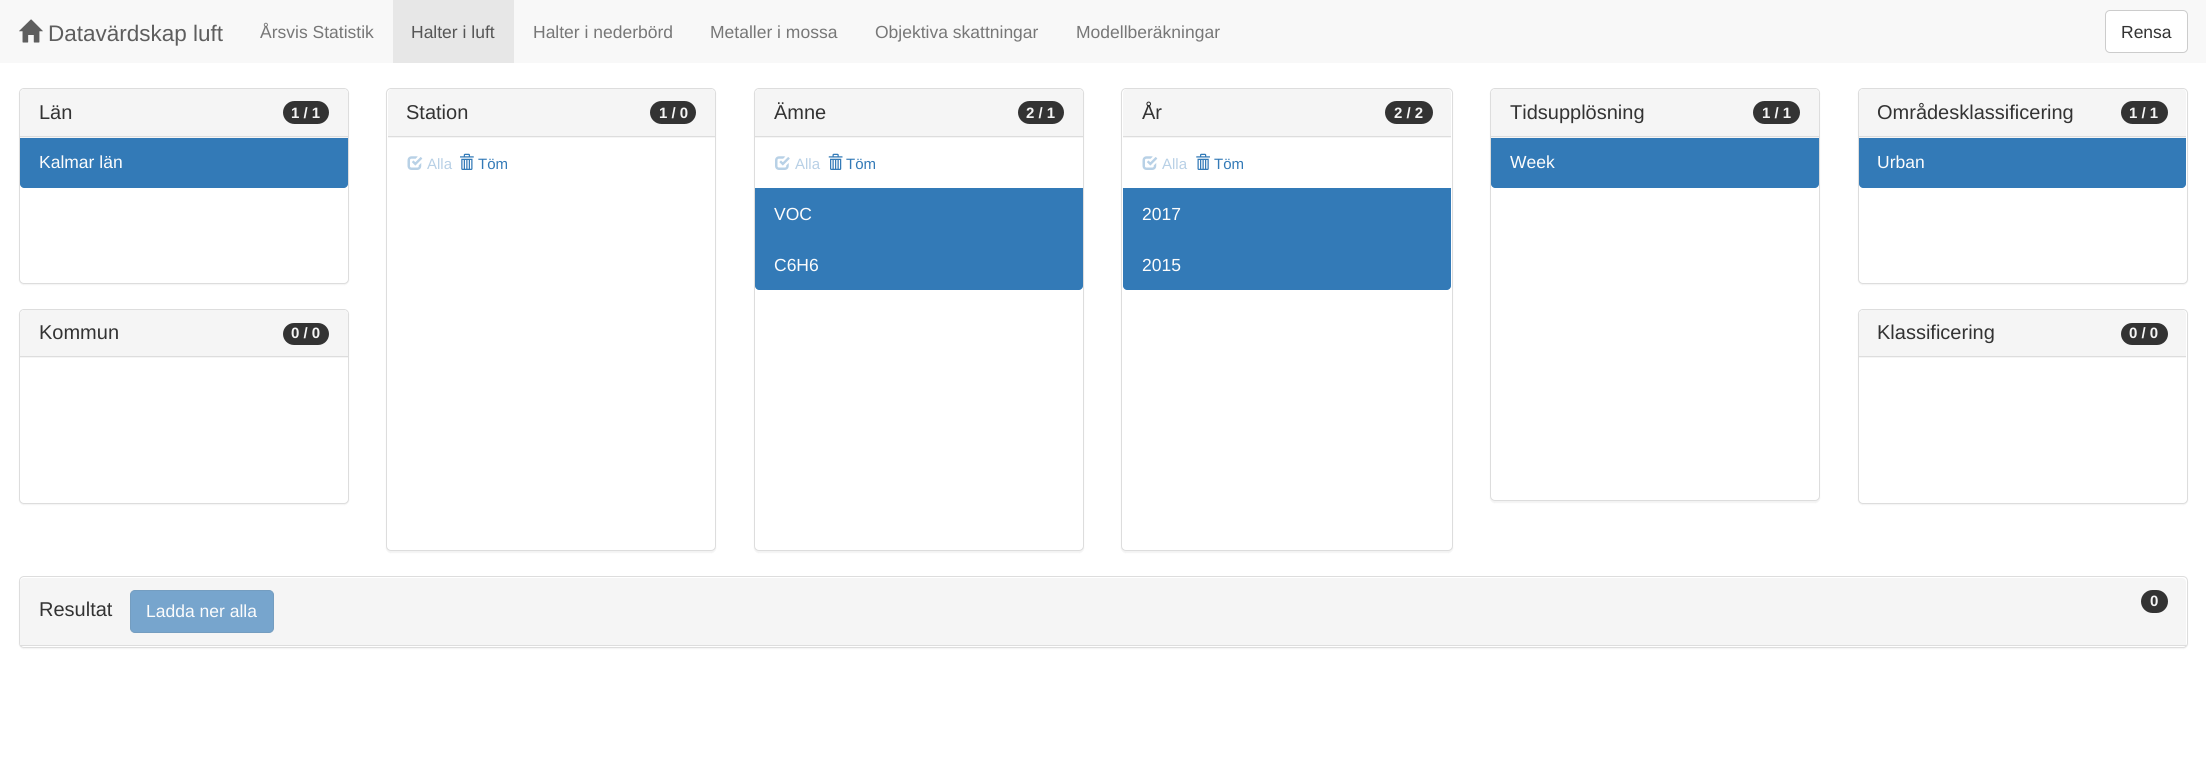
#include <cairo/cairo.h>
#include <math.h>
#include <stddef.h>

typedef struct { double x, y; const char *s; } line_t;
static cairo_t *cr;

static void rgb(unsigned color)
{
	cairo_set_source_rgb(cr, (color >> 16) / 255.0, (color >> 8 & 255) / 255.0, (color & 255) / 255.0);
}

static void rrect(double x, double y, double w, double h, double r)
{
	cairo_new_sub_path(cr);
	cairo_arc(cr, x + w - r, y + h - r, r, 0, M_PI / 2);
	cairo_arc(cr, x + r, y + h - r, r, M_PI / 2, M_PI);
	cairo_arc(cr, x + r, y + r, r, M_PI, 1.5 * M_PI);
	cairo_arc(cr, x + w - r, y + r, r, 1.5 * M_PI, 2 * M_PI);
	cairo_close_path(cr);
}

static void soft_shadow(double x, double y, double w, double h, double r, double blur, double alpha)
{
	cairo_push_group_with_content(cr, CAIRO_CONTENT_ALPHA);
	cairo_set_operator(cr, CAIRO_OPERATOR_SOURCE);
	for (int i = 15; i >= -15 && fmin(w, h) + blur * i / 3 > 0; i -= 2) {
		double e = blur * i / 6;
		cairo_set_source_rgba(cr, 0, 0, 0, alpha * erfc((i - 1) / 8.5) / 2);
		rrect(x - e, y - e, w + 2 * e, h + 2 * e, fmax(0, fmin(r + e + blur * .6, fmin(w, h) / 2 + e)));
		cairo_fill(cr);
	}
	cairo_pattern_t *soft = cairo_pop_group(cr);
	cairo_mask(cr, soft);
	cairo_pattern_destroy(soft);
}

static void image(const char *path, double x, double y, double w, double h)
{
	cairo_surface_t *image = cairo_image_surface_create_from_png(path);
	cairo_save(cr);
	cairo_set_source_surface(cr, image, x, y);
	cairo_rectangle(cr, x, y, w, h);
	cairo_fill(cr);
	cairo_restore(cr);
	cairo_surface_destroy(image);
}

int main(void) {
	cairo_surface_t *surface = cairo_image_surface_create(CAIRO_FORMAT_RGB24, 2206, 778);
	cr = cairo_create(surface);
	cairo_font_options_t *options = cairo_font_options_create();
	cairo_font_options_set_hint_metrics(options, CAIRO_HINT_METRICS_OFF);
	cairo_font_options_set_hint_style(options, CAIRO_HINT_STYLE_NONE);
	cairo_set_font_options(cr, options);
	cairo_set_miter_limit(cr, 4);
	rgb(0xffffff);
	cairo_paint(cr);
	rgb(0xf8f8f8);
	cairo_rectangle(cr, 0, 0, 2206, 63);
	cairo_fill(cr);
	image("img/1.png", 19, 19, 24, 24);
	rgb(0xe7e7e7);
	cairo_rectangle(cr, 393, 0, 121, 63);
	cairo_fill(cr);
	rgb(0xffffff);
	rrect(2105.5, 10.5, 82, 42, 4.5);
	cairo_fill_preserve(cr);
	rgb(0xcccccc);
	cairo_set_line_width(cr, 1);
	cairo_stroke(cr);
	rgb(0x000000);
	soft_shadow(19, 89, 330, 196, 5, 0.5, 0.05);
	rgb(0xffffff);
	rrect(19.5, 88.5, 329, 195, 4.5);
	cairo_fill_preserve(cr);
	rgb(0xdddddd);
	cairo_stroke(cr);
	rgb(0xf5f5f5);
	cairo_new_path(cr);
	cairo_move_to(cr, 24, 89);
	cairo_line_to(cr, 344, 89);
	cairo_curve_to(cr, 346, 89, 348, 91, 348, 93);
	cairo_line_to(cr, 348, 138);
	cairo_line_to(cr, 20, 138);
	cairo_line_to(cr, 20, 93);
	cairo_curve_to(cr, 20, 91, 22, 89, 24, 89);
	cairo_close_path(cr);
	cairo_fill(cr);
	rgb(0xdddddd);
	cairo_rectangle(cr, 20, 136, 328, 1);
	cairo_fill(cr);
	rgb(0x333333);
	rrect(283, 101, 46, 23, 11.5);
	cairo_fill(cr);
	rgb(0x337ab7);
	cairo_new_path(cr);
	cairo_move_to(cr, 20, 138);
	cairo_line_to(cr, 348, 138);
	cairo_line_to(cr, 348, 184);
	cairo_curve_to(cr, 348, 186, 346, 188, 344, 188);
	cairo_line_to(cr, 24, 188);
	cairo_curve_to(cr, 22, 188, 20, 186, 20, 184);
	cairo_close_path(cr);
	cairo_fill(cr);
	rgb(0x000000);
	soft_shadow(19, 310, 330, 195, 5, 0.5, 0.05);
	rgb(0xffffff);
	rrect(19.5, 309.5, 329, 194, 4.5);
	cairo_fill_preserve(cr);
	rgb(0xdddddd);
	cairo_stroke(cr);
	rgb(0xf5f5f5);
	cairo_new_path(cr);
	cairo_move_to(cr, 24, 310);
	cairo_line_to(cr, 344, 310);
	cairo_curve_to(cr, 346, 310, 348, 312, 348, 314);
	cairo_line_to(cr, 348, 358);
	cairo_line_to(cr, 20, 358);
	cairo_line_to(cr, 20, 314);
	cairo_curve_to(cr, 20, 312, 22, 310, 24, 310);
	cairo_close_path(cr);
	cairo_fill(cr);
	rgb(0xdddddd);
	cairo_rectangle(cr, 20, 356, 328, 1);
	cairo_fill(cr);
	rgb(0x333333);
	rrect(283, 323, 46, 22, 11);
	cairo_fill(cr);
	rgb(0x000000);
	soft_shadow(386, 89, 330, 464, 5, 0.5, 0.05);
	rgb(0xffffff);
	rrect(386.5, 88.5, 329, 462, 4.5);
	cairo_fill_preserve(cr);
	rgb(0xdddddd);
	cairo_stroke(cr);
	rgb(0xf5f5f5);
	cairo_new_path(cr);
	cairo_move_to(cr, 392, 89);
	cairo_line_to(cr, 711, 89);
	cairo_curve_to(cr, 713, 89, 715, 91, 715, 93);
	cairo_line_to(cr, 715, 138);
	cairo_line_to(cr, 388, 138);
	cairo_line_to(cr, 388, 93);
	cairo_curve_to(cr, 388, 91, 390, 89, 392, 89);
	cairo_close_path(cr);
	cairo_fill(cr);
	rgb(0xdddddd);
	cairo_rectangle(cr, 388, 136, 327, 1);
	cairo_fill(cr);
	rgb(0x333333);
	rrect(650, 101, 46, 23, 11.5);
	cairo_fill(cr);
	image("img/2.png", 407, 156, 16, 14);
	image("img/3.png", 460, 153, 14, 17);
	rgb(0x000000);
	soft_shadow(754, 89, 330, 464, 5, 0.5, 0.05);
	rgb(0xffffff);
	rrect(754.5, 88.5, 329, 462, 4.5);
	cairo_fill_preserve(cr);
	rgb(0xdddddd);
	cairo_stroke(cr);
	rgb(0xf5f5f5);
	cairo_new_path(cr);
	cairo_move_to(cr, 759, 89);
	cairo_line_to(cr, 1079, 89);
	cairo_curve_to(cr, 1081, 89, 1083, 91, 1083, 93);
	cairo_line_to(cr, 1083, 138);
	cairo_line_to(cr, 755, 138);
	cairo_line_to(cr, 755, 93);
	cairo_curve_to(cr, 755, 91, 757, 89, 759, 89);
	cairo_close_path(cr);
	cairo_fill(cr);
	rgb(0xdddddd);
	cairo_rectangle(cr, 755, 136, 328, 1);
	cairo_fill(cr);
	rgb(0x333333);
	rrect(1018, 101, 46, 23, 11.5);
	cairo_fill(cr);
	image("img/4.png", 775, 156, 15, 14);
	image("img/5.png", 828, 153, 15, 17);
	rgb(0x337ab7);
	cairo_rectangle(cr, 755, 188, 328, 51);
	cairo_fill(cr);
	cairo_new_path(cr);
	cairo_move_to(cr, 755, 239);
	cairo_line_to(cr, 1083, 239);
	cairo_line_to(cr, 1083, 286);
	cairo_curve_to(cr, 1083, 288, 1081, 290, 1079, 290);
	cairo_line_to(cr, 759, 290);
	cairo_curve_to(cr, 757, 290, 755, 288, 755, 286);
	cairo_close_path(cr);
	cairo_fill(cr);
	rgb(0x000000);
	soft_shadow(1121, 89, 332, 464, 5, 0.5, 0.05);
	rgb(0xffffff);
	rrect(1121.5, 88.5, 331, 462, 4.5);
	cairo_fill_preserve(cr);
	rgb(0xdddddd);
	cairo_stroke(cr);
	rgb(0xf5f5f5);
	cairo_new_path(cr);
	cairo_move_to(cr, 1127, 89);
	cairo_line_to(cr, 1447, 89);
	cairo_curve_to(cr, 1449, 89, 1451, 91, 1451, 93);
	cairo_line_to(cr, 1451, 138);
	cairo_line_to(cr, 1123, 138);
	cairo_line_to(cr, 1123, 93);
	cairo_curve_to(cr, 1123, 91, 1125, 89, 1127, 89);
	cairo_close_path(cr);
	cairo_fill(cr);
	rgb(0xdddddd);
	cairo_rectangle(cr, 1123, 136, 328, 1);
	cairo_fill(cr);
	rgb(0x333333);
	rrect(1385, 101, 48, 23, 11.5);
	cairo_fill(cr);
	image("img/2.png", 1142, 156, 16, 14);
	image("img/6.png", 1196, 153, 14, 17);
	rgb(0x337ab7);
	cairo_rectangle(cr, 1123, 188, 328, 51);
	cairo_fill(cr);
	cairo_new_path(cr);
	cairo_move_to(cr, 1123, 239);
	cairo_line_to(cr, 1451, 239);
	cairo_line_to(cr, 1451, 286);
	cairo_curve_to(cr, 1451, 288, 1449, 290, 1447, 290);
	cairo_line_to(cr, 1127, 290);
	cairo_curve_to(cr, 1125, 290, 1123, 288, 1123, 286);
	cairo_close_path(cr);
	cairo_fill(cr);
	rgb(0x000000);
	soft_shadow(1490, 89, 330, 414, 5, 0.5, 0.05);
	rgb(0xffffff);
	rrect(1490.5, 88.5, 329, 412, 4.5);
	cairo_fill_preserve(cr);
	rgb(0xdddddd);
	cairo_stroke(cr);
	rgb(0xf5f5f5);
	cairo_new_path(cr);
	cairo_move_to(cr, 1495, 89);
	cairo_line_to(cr, 1815, 89);
	cairo_curve_to(cr, 1817, 89, 1819, 91, 1819, 93);
	cairo_line_to(cr, 1819, 138);
	cairo_line_to(cr, 1491, 138);
	cairo_line_to(cr, 1491, 93);
	cairo_curve_to(cr, 1491, 91, 1493, 89, 1495, 89);
	cairo_close_path(cr);
	cairo_fill(cr);
	rgb(0xdddddd);
	cairo_rectangle(cr, 1491, 136, 328, 1);
	cairo_fill(cr);
	rgb(0x333333);
	rrect(1753, 101, 47, 23, 11.5);
	cairo_fill(cr);
	rgb(0x337ab7);
	cairo_new_path(cr);
	cairo_move_to(cr, 1491, 138);
	cairo_line_to(cr, 1819, 138);
	cairo_line_to(cr, 1819, 184);
	cairo_curve_to(cr, 1819, 186, 1817, 188, 1815, 188);
	cairo_line_to(cr, 1495, 188);
	cairo_curve_to(cr, 1493, 188, 1491, 186, 1491, 184);
	cairo_close_path(cr);
	cairo_fill(cr);
	rgb(0x000000);
	soft_shadow(1858, 89, 330, 196, 5, 0.5, 0.05);
	rgb(0xffffff);
	rrect(1858.5, 88.5, 329, 195, 4.5);
	cairo_fill_preserve(cr);
	rgb(0xdddddd);
	cairo_stroke(cr);
	rgb(0xf5f5f5);
	cairo_new_path(cr);
	cairo_move_to(cr, 1863, 89);
	cairo_line_to(cr, 2182, 89);
	cairo_curve_to(cr, 2184, 89, 2186, 91, 2186, 93);
	cairo_line_to(cr, 2186, 138);
	cairo_line_to(cr, 1859, 138);
	cairo_line_to(cr, 1859, 93);
	cairo_curve_to(cr, 1859, 91, 1861, 89, 1863, 89);
	cairo_close_path(cr);
	cairo_fill(cr);
	rgb(0xdddddd);
	cairo_rectangle(cr, 1859, 136, 327, 1);
	cairo_fill(cr);
	rgb(0x333333);
	rrect(2121, 101, 47, 23, 11.5);
	cairo_fill(cr);
	rgb(0x337ab7);
	cairo_new_path(cr);
	cairo_move_to(cr, 1859, 138);
	cairo_line_to(cr, 2186, 138);
	cairo_line_to(cr, 2186, 184);
	cairo_curve_to(cr, 2186, 186, 2184, 188, 2182, 188);
	cairo_line_to(cr, 1863, 188);
	cairo_curve_to(cr, 1861, 188, 1859, 186, 1859, 184);
	cairo_close_path(cr);
	cairo_fill(cr);
	rgb(0x000000);
	soft_shadow(1858, 310, 330, 195, 5, 0.5, 0.05);
	rgb(0xffffff);
	rrect(1858.5, 309.5, 329, 194, 4.5);
	cairo_fill_preserve(cr);
	rgb(0xdddddd);
	cairo_stroke(cr);
	rgb(0xf5f5f5);
	cairo_new_path(cr);
	cairo_move_to(cr, 1863, 310);
	cairo_line_to(cr, 2182, 310);
	cairo_curve_to(cr, 2184, 310, 2186, 312, 2186, 314);
	cairo_line_to(cr, 2186, 358);
	cairo_line_to(cr, 1859, 358);
	cairo_line_to(cr, 1859, 314);
	cairo_curve_to(cr, 1859, 312, 1861, 310, 1863, 310);
	cairo_close_path(cr);
	cairo_fill(cr);
	rgb(0xdddddd);
	cairo_rectangle(cr, 1859, 356, 327, 1);
	cairo_fill(cr);
	rgb(0x333333);
	rrect(2121, 323, 47, 22, 11);
	cairo_fill(cr);
	rgb(0x000000);
	soft_shadow(19, 578, 2169, 71, 5, 0.5, 0.05);
	rgb(0xffffff);
	rrect(19.5, 576.5, 2168, 71, 4.5);
	cairo_fill_preserve(cr);
	rgb(0xdddddd);
	cairo_stroke(cr);
	rgb(0xf5f5f5);
	cairo_new_path(cr);
	cairo_move_to(cr, 24, 578);
	cairo_line_to(cr, 2182, 578);
	cairo_curve_to(cr, 2184, 578, 2186, 580, 2186, 582);
	cairo_line_to(cr, 2186, 646);
	cairo_line_to(cr, 20, 646);
	cairo_line_to(cr, 20, 582);
	cairo_curve_to(cr, 20, 580, 22, 578, 24, 578);
	cairo_close_path(cr);
	cairo_fill(cr);
	rgb(0xdddddd);
	cairo_rectangle(cr, 20, 645, 2166, 1);
	cairo_fill(cr);
	rgb(0x77a5cd);
	rrect(130.5, 590.5, 143, 42, 4.5);
	cairo_fill_preserve(cr);
	rgb(0x749dc0);
	cairo_stroke(cr);
	rgb(0x333333);
	rrect(2141, 590, 27, 23, 11.5);
	cairo_fill(cr);
	cairo_select_font_face(cr, "Liberation Sans", CAIRO_FONT_SLANT_NORMAL, CAIRO_FONT_WEIGHT_NORMAL);
	cairo_set_font_size(cr, 22.5);
	rgb(0x5e5e5e);
	cairo_move_to(cr, 48, 41);
	cairo_show_text(cr, "Datavärdskap luft");
	cairo_set_font_size(cr, 17.5);
	rgb(0x777777);
	cairo_move_to(cr, 260, 38);
	cairo_show_text(cr, "Årsvis Statistik");
	rgb(0x555555);
	cairo_move_to(cr, 411, 38);
	cairo_show_text(cr, "Halter i luft");
	rgb(0x777777);
	{
		static const line_t items[] = {
			{533, 38, "Halter i nederbörd"},
			{710, 38, "Metaller i mossa"},
			{875, 38, "Objektiva skattningar"},
			{1076, 38, "Modellberäkningar"},
		};
		for (size_t i = 0; i < sizeof items / sizeof *items; i++) {
			cairo_move_to(cr, items[i].x, items[i].y);
			cairo_show_text(cr, items[i].s);
		}
	}
	rgb(0x333333);
	cairo_move_to(cr, 2121, 38);
	cairo_show_text(cr, "Rensa");
	cairo_set_font_size(cr, 20);
	cairo_move_to(cr, 39, 119);
	cairo_show_text(cr, "Län");
	cairo_select_font_face(cr, "Liberation Sans", CAIRO_FONT_SLANT_NORMAL, CAIRO_FONT_WEIGHT_BOLD);
	cairo_set_font_size(cr, 15);
	rgb(0xf5f5f5);
	cairo_move_to(cr, 291, 118);
	cairo_show_text(cr, "1 / 1");
	cairo_select_font_face(cr, "Liberation Sans", CAIRO_FONT_SLANT_NORMAL, CAIRO_FONT_WEIGHT_NORMAL);
	cairo_set_font_size(cr, 17.5);
	rgb(0xfcfcfc);
	cairo_move_to(cr, 39, 168);
	cairo_show_text(cr, "Kalmar län");
	cairo_set_font_size(cr, 20);
	rgb(0x333333);
	cairo_move_to(cr, 39, 339);
	cairo_show_text(cr, "Kommun");
	cairo_select_font_face(cr, "Liberation Sans", CAIRO_FONT_SLANT_NORMAL, CAIRO_FONT_WEIGHT_BOLD);
	cairo_set_font_size(cr, 15);
	rgb(0xf5f5f5);
	cairo_move_to(cr, 291, 338);
	cairo_show_text(cr, "0 / 0");
	cairo_select_font_face(cr, "Liberation Sans", CAIRO_FONT_SLANT_NORMAL, CAIRO_FONT_WEIGHT_NORMAL);
	cairo_set_font_size(cr, 20);
	rgb(0x333333);
	cairo_move_to(cr, 406, 119);
	cairo_show_text(cr, "Station");
	cairo_select_font_face(cr, "Liberation Sans", CAIRO_FONT_SLANT_NORMAL, CAIRO_FONT_WEIGHT_BOLD);
	cairo_set_font_size(cr, 15);
	rgb(0xf5f5f5);
	cairo_move_to(cr, 659, 118);
	cairo_show_text(cr, "1 / 0");
	cairo_select_font_face(cr, "Liberation Sans", CAIRO_FONT_SLANT_NORMAL, CAIRO_FONT_WEIGHT_NORMAL);
	rgb(0xb8d0e6);
	cairo_move_to(cr, 427, 169);
	cairo_show_text(cr, "Alla");
	rgb(0x337ab7);
	cairo_move_to(cr, 478, 169);
	cairo_show_text(cr, "Töm");
	cairo_set_font_size(cr, 20);
	rgb(0x333333);
	cairo_move_to(cr, 774, 119);
	cairo_show_text(cr, "Ämne");
	cairo_select_font_face(cr, "Liberation Sans", CAIRO_FONT_SLANT_NORMAL, CAIRO_FONT_WEIGHT_BOLD);
	cairo_set_font_size(cr, 15);
	rgb(0xf5f5f5);
	cairo_move_to(cr, 1026, 118);
	cairo_show_text(cr, "2 / 1");
	cairo_select_font_face(cr, "Liberation Sans", CAIRO_FONT_SLANT_NORMAL, CAIRO_FONT_WEIGHT_NORMAL);
	rgb(0xb8d0e6);
	cairo_move_to(cr, 795, 169);
	cairo_show_text(cr, "Alla");
	rgb(0x337ab7);
	cairo_move_to(cr, 846, 169);
	cairo_show_text(cr, "Töm");
	cairo_set_font_size(cr, 17.5);
	rgb(0xfcfcfc);
	cairo_move_to(cr, 774, 220);
	cairo_show_text(cr, "VOC");
	cairo_move_to(cr, 774, 271);
	cairo_show_text(cr, "C6H6");
	cairo_set_font_size(cr, 20);
	rgb(0x333333);
	cairo_move_to(cr, 1142, 119);
	cairo_show_text(cr, "År");
	cairo_select_font_face(cr, "Liberation Sans", CAIRO_FONT_SLANT_NORMAL, CAIRO_FONT_WEIGHT_BOLD);
	cairo_set_font_size(cr, 15);
	rgb(0xf5f5f5);
	cairo_move_to(cr, 1394, 118);
	cairo_show_text(cr, "2 / 2");
	cairo_select_font_face(cr, "Liberation Sans", CAIRO_FONT_SLANT_NORMAL, CAIRO_FONT_WEIGHT_NORMAL);
	rgb(0xb8d0e6);
	cairo_move_to(cr, 1162, 169);
	cairo_show_text(cr, "Alla");
	rgb(0x337ab7);
	cairo_move_to(cr, 1214, 169);
	cairo_show_text(cr, "Töm");
	cairo_set_font_size(cr, 17.5);
	rgb(0xfcfcfc);
	cairo_move_to(cr, 1142, 220);
	cairo_show_text(cr, "2017");
	cairo_move_to(cr, 1142, 271);
	cairo_show_text(cr, "2015");
	cairo_set_font_size(cr, 20);
	rgb(0x333333);
	cairo_move_to(cr, 1510, 119);
	cairo_show_text(cr, "Tidsupplösning");
	cairo_select_font_face(cr, "Liberation Sans", CAIRO_FONT_SLANT_NORMAL, CAIRO_FONT_WEIGHT_BOLD);
	cairo_set_font_size(cr, 15);
	rgb(0xf5f5f5);
	cairo_move_to(cr, 1762, 118);
	cairo_show_text(cr, "1 / 1");
	cairo_select_font_face(cr, "Liberation Sans", CAIRO_FONT_SLANT_NORMAL, CAIRO_FONT_WEIGHT_NORMAL);
	cairo_set_font_size(cr, 17.5);
	rgb(0xfcfcfc);
	cairo_move_to(cr, 1510, 168);
	cairo_show_text(cr, "Week");
	cairo_set_font_size(cr, 20);
	rgb(0x333333);
	cairo_move_to(cr, 1877, 119);
	cairo_show_text(cr, "Områdesklassificering");
	cairo_select_font_face(cr, "Liberation Sans", CAIRO_FONT_SLANT_NORMAL, CAIRO_FONT_WEIGHT_BOLD);
	cairo_set_font_size(cr, 15);
	rgb(0xf5f5f5);
	cairo_move_to(cr, 2129, 118);
	cairo_show_text(cr, "1 / 1");
	cairo_select_font_face(cr, "Liberation Sans", CAIRO_FONT_SLANT_NORMAL, CAIRO_FONT_WEIGHT_NORMAL);
	cairo_set_font_size(cr, 17.5);
	rgb(0xfcfcfc);
	cairo_move_to(cr, 1877, 168);
	cairo_show_text(cr, "Urban");
	cairo_set_font_size(cr, 20);
	rgb(0x333333);
	cairo_move_to(cr, 1877, 339);
	cairo_show_text(cr, "Klassificering");
	cairo_select_font_face(cr, "Liberation Sans", CAIRO_FONT_SLANT_NORMAL, CAIRO_FONT_WEIGHT_BOLD);
	cairo_set_font_size(cr, 15);
	rgb(0xf5f5f5);
	cairo_move_to(cr, 2129, 338);
	cairo_show_text(cr, "0 / 0");
	cairo_select_font_face(cr, "Liberation Sans", CAIRO_FONT_SLANT_NORMAL, CAIRO_FONT_WEIGHT_NORMAL);
	cairo_set_font_size(cr, 20);
	rgb(0x333333);
	cairo_move_to(cr, 39, 616);
	cairo_show_text(cr, "Resultat");
	cairo_set_font_size(cr, 17.5);
	rgb(0xfcfcfc);
	cairo_move_to(cr, 146, 617);
	cairo_show_text(cr, "Ladda ner alla");
	cairo_select_font_face(cr, "Liberation Sans", CAIRO_FONT_SLANT_NORMAL, CAIRO_FONT_WEIGHT_BOLD);
	cairo_set_font_size(cr, 15);
	rgb(0xf5f5f5);
	cairo_move_to(cr, 2150, 606);
	cairo_show_text(cr, "0");
	cairo_surface_write_to_png(surface, "page.png");
	cairo_font_options_destroy(options);
	cairo_destroy(cr);
	cairo_surface_destroy(surface);
	return 0;
}
